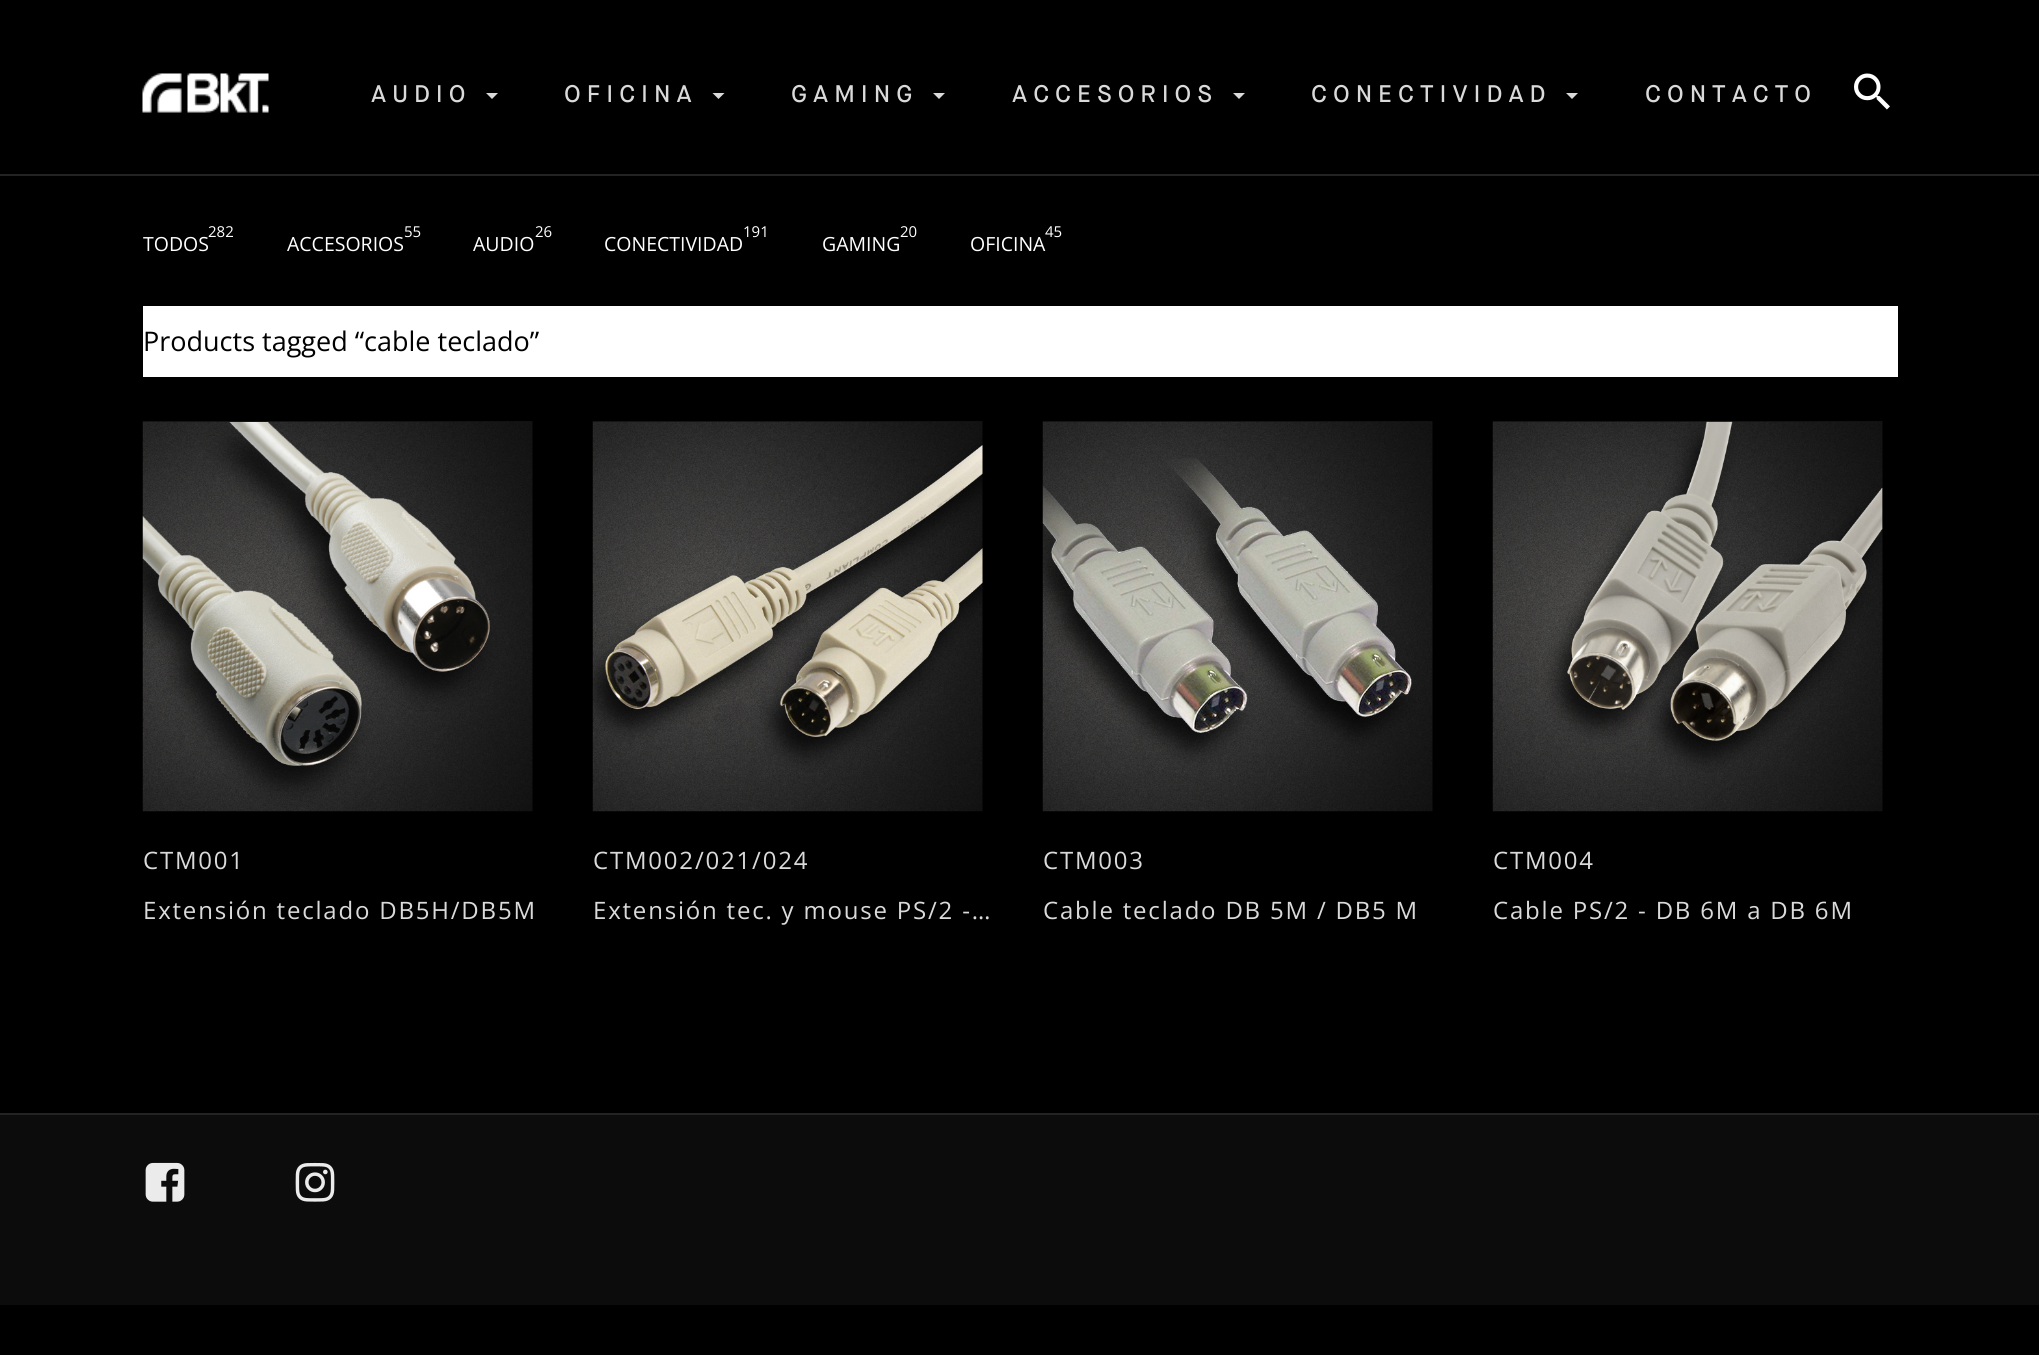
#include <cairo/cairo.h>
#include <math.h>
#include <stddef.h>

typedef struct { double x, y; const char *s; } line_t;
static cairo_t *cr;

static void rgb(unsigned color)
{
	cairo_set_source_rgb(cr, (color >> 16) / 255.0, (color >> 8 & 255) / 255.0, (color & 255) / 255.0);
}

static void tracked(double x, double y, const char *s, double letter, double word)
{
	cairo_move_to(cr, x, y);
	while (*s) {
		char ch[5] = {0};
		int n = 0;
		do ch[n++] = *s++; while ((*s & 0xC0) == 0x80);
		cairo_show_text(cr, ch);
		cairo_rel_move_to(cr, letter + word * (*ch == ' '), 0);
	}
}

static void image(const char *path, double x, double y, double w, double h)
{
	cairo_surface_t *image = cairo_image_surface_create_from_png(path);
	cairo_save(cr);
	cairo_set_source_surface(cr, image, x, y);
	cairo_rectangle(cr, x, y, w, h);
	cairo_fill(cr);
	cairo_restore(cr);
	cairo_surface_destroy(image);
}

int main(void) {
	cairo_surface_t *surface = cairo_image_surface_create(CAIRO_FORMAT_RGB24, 2039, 1355);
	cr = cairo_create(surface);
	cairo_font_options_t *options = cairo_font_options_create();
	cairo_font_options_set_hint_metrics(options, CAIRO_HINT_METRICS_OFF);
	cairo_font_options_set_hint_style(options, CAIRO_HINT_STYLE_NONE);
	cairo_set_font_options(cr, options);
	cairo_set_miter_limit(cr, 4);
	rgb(0x000000);
	cairo_paint(cr);
	rgb(0x232323);
	cairo_rectangle(cr, 0, 174, 2039, 2);
	cairo_fill(cr);
	image("img/1.png", 142, 73, 127, 40);
	rgb(0xdadada);
	cairo_new_path(cr);
	cairo_move_to(cr, 486, 93);
	cairo_line_to(cr, 498, 93);
	cairo_line_to(cr, 492, 99);
	cairo_close_path(cr);
	cairo_fill(cr);
	cairo_new_path(cr);
	cairo_move_to(cr, 712.5, 93);
	cairo_line_to(cr, 724.5, 93);
	cairo_line_to(cr, 718.5, 99);
	cairo_close_path(cr);
	cairo_fill(cr);
	cairo_new_path(cr);
	cairo_move_to(cr, 933, 93);
	cairo_line_to(cr, 945, 93);
	cairo_line_to(cr, 939, 99);
	cairo_close_path(cr);
	cairo_fill(cr);
	cairo_new_path(cr);
	cairo_move_to(cr, 1233, 93);
	cairo_line_to(cr, 1245, 93);
	cairo_line_to(cr, 1239, 99);
	cairo_close_path(cr);
	cairo_fill(cr);
	cairo_new_path(cr);
	cairo_move_to(cr, 1566, 93);
	cairo_line_to(cr, 1578, 93);
	cairo_line_to(cr, 1572, 99);
	cairo_close_path(cr);
	cairo_fill(cr);
	image("img/2.png", 1854, 73, 36, 37);
	rgb(0xffffff);
	cairo_rectangle(cr, 143, 306, 1755, 71);
	cairo_fill(cr);
	image("img/3.png", 142, 421, 391, 391);
	image("img/4.png", 592, 421, 391, 391);
	image("img/5.png", 1042, 421, 391, 391);
	image("img/6.png", 1492, 421, 391, 391);
	rgb(0x0c0c0c);
	cairo_rectangle(cr, 0, 1115, 2039, 190);
	cairo_fill(cr);
	rgb(0x232323);
	cairo_rectangle(cr, 0, 1113, 2039, 2);
	cairo_fill(cr);
	image("img/7.png", 145, 1162, 40, 40);
	image("img/8.png", 295, 1162, 40, 40);
	cairo_select_font_face(cr, "Maison Neue Medium", CAIRO_FONT_SLANT_NORMAL, CAIRO_FONT_WEIGHT_NORMAL);
	cairo_set_font_size(cr, 24);
	rgb(0xdadada);
	{
		static const line_t items[] = {
			{371, 102, "AUDIO"},
			{564, 102, "OFICINA"},
			{791, 102, "GAMING"},
			{1012, 102, "ACCESORIOS"},
			{1311, 102, "CONECTIVIDAD"},
			{1645, 102, "CONTACTO"},
		};
		for (size_t i = 0; i < sizeof items / sizeof *items; i++) {
			tracked(items[i].x, items[i].y, items[i].s, 6, 0);
		}
	}
	cairo_select_font_face(cr, "Open Sans", CAIRO_FONT_SLANT_NORMAL, CAIRO_FONT_WEIGHT_NORMAL);
	cairo_set_font_size(cr, 15);
	rgb(0xffffff);
	cairo_move_to(cr, 208, 237);
	cairo_show_text(cr, "282");
	cairo_set_font_size(cr, 19.5);
	cairo_move_to(cr, 143, 251);
	cairo_show_text(cr, "TODOS");
	cairo_set_font_size(cr, 15);
	cairo_move_to(cr, 404, 237);
	cairo_show_text(cr, "55");
	cairo_set_font_size(cr, 19.5);
	cairo_move_to(cr, 287, 251);
	cairo_show_text(cr, "ACCESORIOS");
	cairo_set_font_size(cr, 15);
	cairo_move_to(cr, 535, 237);
	cairo_show_text(cr, "26");
	cairo_set_font_size(cr, 19.5);
	cairo_move_to(cr, 473, 251);
	cairo_show_text(cr, "AUDIO");
	cairo_set_font_size(cr, 15);
	cairo_move_to(cr, 743, 237);
	cairo_show_text(cr, "191");
	cairo_set_font_size(cr, 19.5);
	cairo_move_to(cr, 604, 251);
	cairo_show_text(cr, "CONECTIVIDAD");
	cairo_set_font_size(cr, 15);
	cairo_move_to(cr, 900, 237);
	cairo_show_text(cr, "20");
	cairo_set_font_size(cr, 19.5);
	cairo_move_to(cr, 822, 251);
	cairo_show_text(cr, "GAMING");
	cairo_set_font_size(cr, 15);
	cairo_move_to(cr, 1045, 237);
	cairo_show_text(cr, "45");
	cairo_set_font_size(cr, 19.5);
	cairo_move_to(cr, 970, 251);
	cairo_show_text(cr, "OFICINA");
	cairo_set_font_size(cr, 27);
	rgb(0x000000);
	cairo_move_to(cr, 143, 351);
	cairo_show_text(cr, "Products tagged “cable teclado”");
	cairo_set_font_size(cr, 24);
	rgb(0xdadada);
	{
		static const line_t items[] = {
			{143, 869, "CTM001"},
			{143, 919, "Extensión teclado DB5H/DB5M"},
			{593, 869, "CTM002/021/024"},
			{593, 919, "Extensión tec. y mouse PS/2 -…"},
			{1043, 869, "CTM003"},
			{1043, 919, "Cable teclado DB 5M / DB5 M"},
			{1493, 869, "CTM004"},
			{1493, 919, "Cable PS/2 - DB 6M a DB 6M"},
		};
		for (size_t i = 0; i < sizeof items / sizeof *items; i++) {
			tracked(items[i].x, items[i].y, items[i].s, 1.8, 0);
		}
	}
	cairo_surface_write_to_png(surface, "page.png");
	cairo_font_options_destroy(options);
	cairo_destroy(cr);
	cairo_surface_destroy(surface);
	return 0;
}
